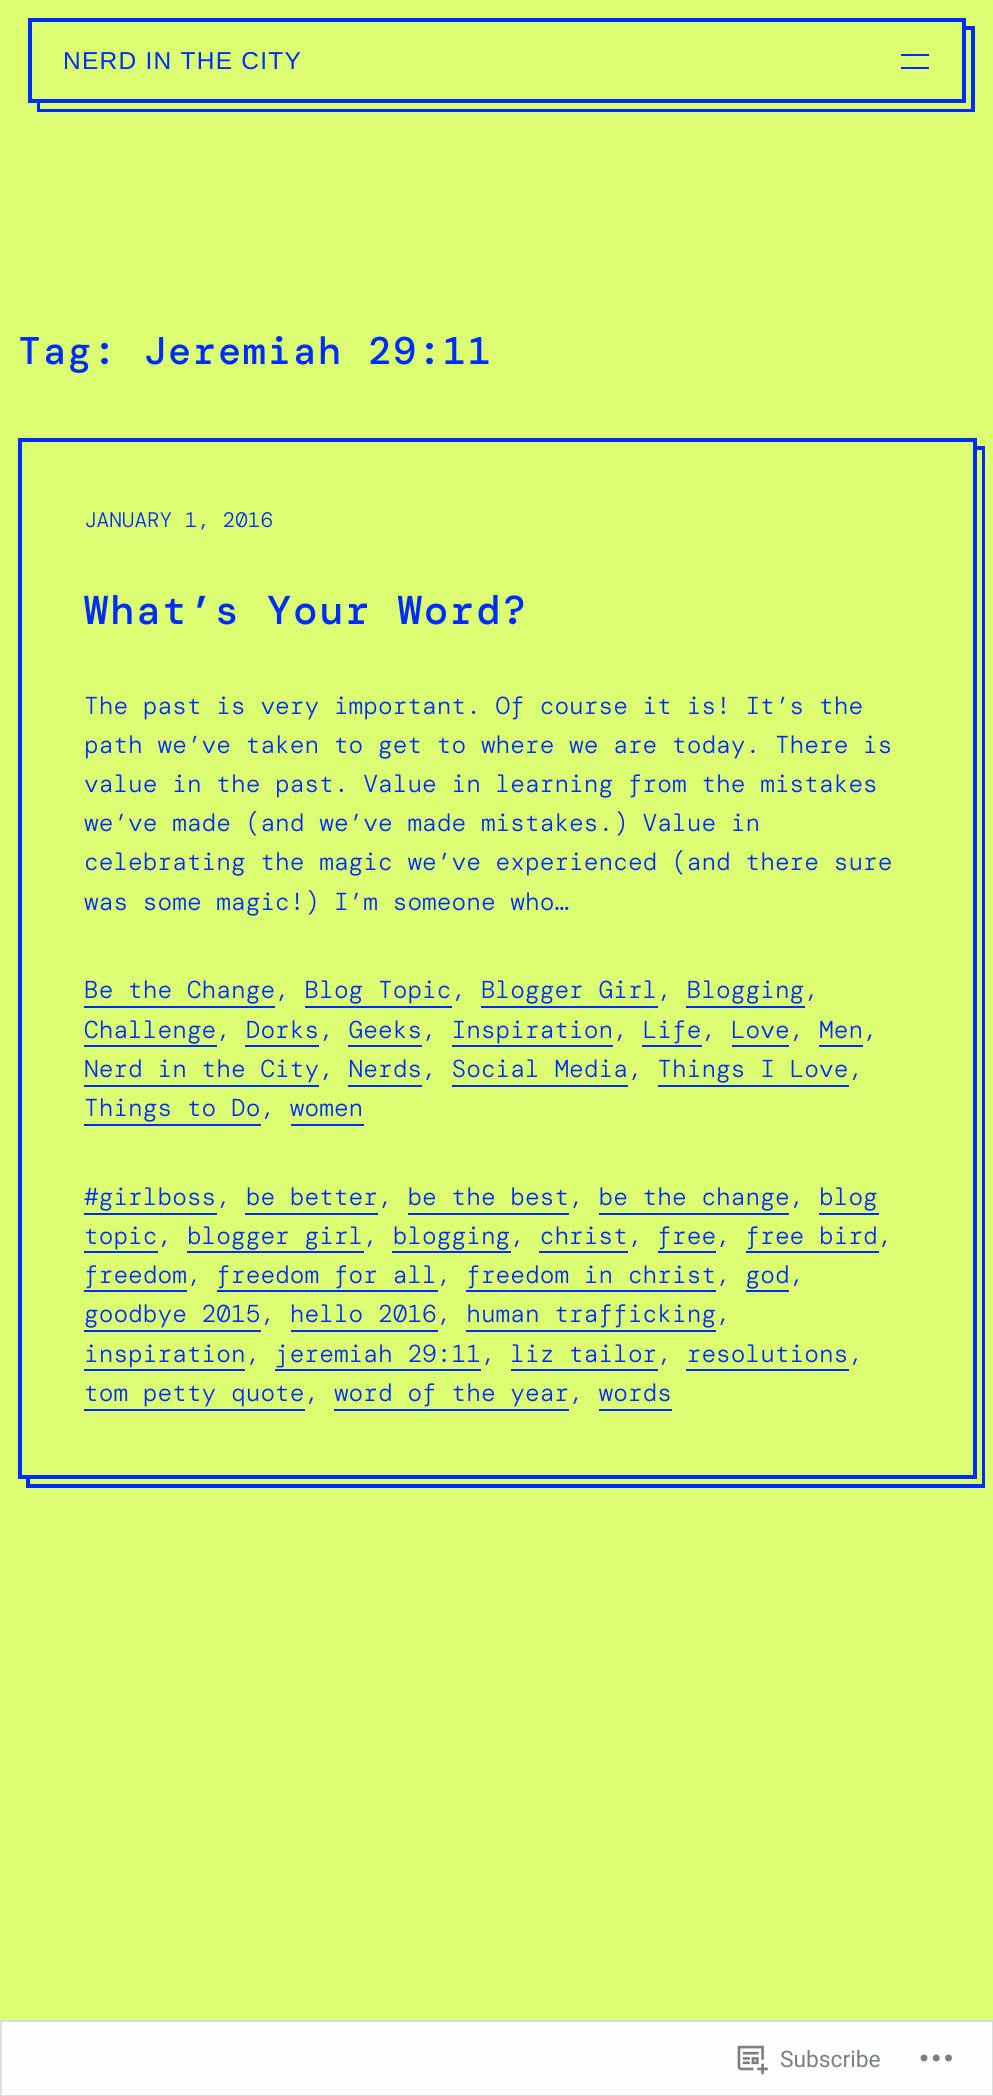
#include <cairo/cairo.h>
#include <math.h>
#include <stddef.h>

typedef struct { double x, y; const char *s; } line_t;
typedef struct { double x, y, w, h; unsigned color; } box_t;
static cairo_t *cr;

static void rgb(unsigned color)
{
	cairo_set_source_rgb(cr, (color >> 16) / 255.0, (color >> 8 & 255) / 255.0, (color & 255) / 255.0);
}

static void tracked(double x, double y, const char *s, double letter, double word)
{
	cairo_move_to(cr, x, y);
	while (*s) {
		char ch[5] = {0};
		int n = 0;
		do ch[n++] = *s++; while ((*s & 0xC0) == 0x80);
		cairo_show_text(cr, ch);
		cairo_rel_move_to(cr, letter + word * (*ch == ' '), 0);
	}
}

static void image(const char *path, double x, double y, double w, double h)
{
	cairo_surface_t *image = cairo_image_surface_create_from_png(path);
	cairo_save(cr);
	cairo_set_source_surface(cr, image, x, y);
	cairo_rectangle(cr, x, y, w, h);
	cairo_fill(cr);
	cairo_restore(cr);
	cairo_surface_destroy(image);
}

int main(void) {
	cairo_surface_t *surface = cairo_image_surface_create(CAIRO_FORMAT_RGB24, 993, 2096);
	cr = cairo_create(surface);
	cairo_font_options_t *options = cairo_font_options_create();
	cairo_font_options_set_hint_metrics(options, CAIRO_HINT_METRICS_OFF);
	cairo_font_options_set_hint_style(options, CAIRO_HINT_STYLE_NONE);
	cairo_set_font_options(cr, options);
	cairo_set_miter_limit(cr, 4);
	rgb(0xdcfc72);
	cairo_paint(cr);
	rgb(0x002df5);
	cairo_new_path(cr);
	cairo_move_to(cr, 37, 103);
	cairo_line_to(cr, 37, 112);
	cairo_line_to(cr, 975, 112);
	cairo_line_to(cr, 975, 26);
	cairo_line_to(cr, 966, 26);
	cairo_line_to(cr, 966, 103);
	cairo_close_path(cr);
	cairo_fill(cr);
	rgb(0xdcfc72);
	cairo_new_path(cr);
	cairo_move_to(cr, 40, 103);
	cairo_line_to(cr, 40, 109);
	cairo_line_to(cr, 971, 109);
	cairo_line_to(cr, 971, 30);
	cairo_line_to(cr, 966, 30);
	cairo_line_to(cr, 966, 103);
	cairo_close_path(cr);
	cairo_fill(cr);
	cairo_rectangle(cr, 30, 20, 934, 81);
	rgb(0x002df5);
	cairo_set_line_width(cr, 4);
	cairo_stroke(cr);
	cairo_rectangle(cr, 901, 54, 28, 2);
	cairo_fill(cr);
	cairo_rectangle(cr, 901, 67, 28, 2);
	cairo_fill(cr);
	cairo_new_path(cr);
	cairo_move_to(cr, 26, 1479);
	cairo_line_to(cr, 26, 1488);
	cairo_line_to(cr, 985, 1488);
	cairo_line_to(cr, 985, 446);
	cairo_line_to(cr, 976, 446);
	cairo_line_to(cr, 976, 1479);
	cairo_close_path(cr);
	cairo_fill(cr);
	rgb(0xdcfc72);
	cairo_new_path(cr);
	cairo_move_to(cr, 30, 1479);
	cairo_line_to(cr, 30, 1484);
	cairo_line_to(cr, 982, 1484);
	cairo_line_to(cr, 982, 450);
	cairo_line_to(cr, 976, 450);
	cairo_line_to(cr, 976, 1479);
	cairo_close_path(cr);
	cairo_fill(cr);
	cairo_rectangle(cr, 20, 440, 955, 1037);
	rgb(0x002df5);
	cairo_stroke(cr);
	{
		static const box_t items[] = {
			{84, 1006, 191, 2, 0x002df5},
			{305, 1006, 147, 2, 0x002df5},
			{481, 1006, 177, 2, 0x002df5},
			{686, 1006, 119, 2, 0x002df5},
			{84, 1045, 133, 2, 0x002df5},
			{245, 1045, 74, 2, 0x002df5},
			{348, 1045, 74, 2, 0x002df5},
			{452, 1045, 161, 2, 0x002df5},
			{642, 1045, 60, 2, 0x002df5},
			{732, 1045, 57, 2, 0x002df5},
			{819, 1045, 44, 2, 0x002df5},
			{84, 1085, 235, 2, 0x002df5},
			{348, 1085, 74, 2, 0x002df5},
			{452, 1085, 176, 2, 0x002df5},
			{658, 1085, 191, 2, 0x002df5},
			{84, 1124, 177, 2, 0x002df5},
			{291, 1124, 73, 2, 0x002df5},
			{84, 1213, 133, 2, 0x002df5},
			{245, 1213, 133, 2, 0x002df5},
			{408, 1213, 161, 2, 0x002df5},
			{599, 1213, 190, 2, 0x002df5},
			{819, 1213, 60, 2, 0x002df5},
			{84, 1251, 74, 2, 0x002df5},
			{187, 1251, 177, 2, 0x002df5},
			{392, 1251, 119, 2, 0x002df5},
			{539, 1251, 89, 2, 0x002df5},
			{658, 1251, 58, 2, 0x002df5},
			{746, 1251, 133, 2, 0x002df5},
			{84, 1290, 103, 2, 0x002df5},
			{217, 1290, 221, 2, 0x002df5},
			{466, 1290, 250, 2, 0x002df5},
			{746, 1290, 43, 2, 0x002df5},
			{84, 1330, 177, 2, 0x002df5},
			{291, 1330, 147, 2, 0x002df5},
			{466, 1330, 250, 2, 0x002df5},
			{84, 1369, 161, 2, 0x002df5},
			{275, 1369, 206, 2, 0x002df5},
			{511, 1369, 147, 2, 0x002df5},
			{686, 1369, 163, 2, 0x002df5},
			{84, 1409, 221, 2, 0x002df5},
			{334, 1409, 235, 2, 0x002df5},
			{599, 1409, 73, 2, 0x002df5},
		};
		for (size_t i = 0; i < sizeof items / sizeof *items; i++) {
			rgb(items[i].color);
			cairo_rectangle(cr, items[i].x, items[i].y, items[i].w, items[i].h);
			cairo_fill(cr);
		}
	}
	rgb(0xfefffc);
	cairo_rectangle(cr, 1, 2021, 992, 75);
	cairo_fill_preserve(cr);
	rgb(0xdcdddc);
	cairo_set_line_width(cr, 2);
	cairo_stroke(cr);
	image("img/1.png", 737, 2045, 31, 30);
	image("img/2.png", 920, 2054, 32, 8);
	cairo_select_font_face(cr, "Liberation Sans", CAIRO_FONT_SLANT_NORMAL, CAIRO_FONT_WEIGHT_NORMAL);
	cairo_set_font_size(cr, 24.5);
	rgb(0x002df5);
	tracked(63, 69, "NERD IN THE CITY", 1.25, 0);
	cairo_select_font_face(cr, "DM Mono Medium", CAIRO_FONT_SLANT_NORMAL, CAIRO_FONT_WEIGHT_NORMAL);
	cairo_set_font_size(cr, 38.5);
	tracked(18, 364, "Tag: Jeremiah 29:11", 1.9, 0);
	cairo_select_font_face(cr, "DM Mono Light", CAIRO_FONT_SLANT_NORMAL, CAIRO_FONT_WEIGHT_NORMAL);
	cairo_set_font_size(cr, 21);
	cairo_move_to(cr, 84, 527);
	cairo_show_text(cr, "JANUARY 1, 2016");
	cairo_select_font_face(cr, "DM Mono Medium", CAIRO_FONT_SLANT_NORMAL, CAIRO_FONT_WEIGHT_NORMAL);
	cairo_set_font_size(cr, 40.25);
	tracked(84, 624, "What’s Your Word?", 2, 0);
	cairo_select_font_face(cr, "DM Mono Light", CAIRO_FONT_SLANT_NORMAL, CAIRO_FONT_WEIGHT_NORMAL);
	cairo_set_font_size(cr, 24.5);
	{
		static const line_t items[] = {
			{84, 714, "The past is very important. Of course it is! It’s the"},
			{84, 753, "path we’ve taken to get to where we are today. There is"},
			{84, 792, "value in the past. Value in learning from the mistakes"},
			{84, 831, "we’ve made (and we’ve made mistakes.) Value in"},
			{84, 870, "celebrating the magic we’ve experienced (and there sure"},
			{84, 910, "was some magic!) I’m someone who…"},
			{84, 998, "Be the Change, Blog Topic, Blogger Girl, Blogging,"},
			{84, 1038, "Challenge, Dorks, Geeks, Inspiration, Life, Love, Men,"},
			{84, 1077, "Nerd in the City, Nerds, Social Media, Things I Love,"},
			{84, 1116, "Things to Do, women"},
			{84, 1205, "#girlboss, be better, be the best, be the change, blog"},
			{84, 1244, "topic, blogger girl, blogging, christ, free, free bird,"},
			{84, 1283, "freedom, freedom for all, freedom in christ, god,"},
			{84, 1322, "goodbye 2015, hello 2016, human trafficking,"},
			{84, 1362, "inspiration, jeremiah 29:11, liz tailor, resolutions,"},
			{84, 1401, "tom petty quote, word of the year, words"},
		};
		for (size_t i = 0; i < sizeof items / sizeof *items; i++) {
			cairo_move_to(cr, items[i].x, items[i].y);
			cairo_show_text(cr, items[i].s);
		}
	}
	cairo_select_font_face(cr, "Roboto", CAIRO_FONT_SLANT_NORMAL, CAIRO_FONT_WEIGHT_NORMAL);
	cairo_set_font_size(cr, 22.75);
	rgb(0x7a7f82);
	cairo_move_to(cr, 780, 2067);
	cairo_show_text(cr, "Subscribe");
	cairo_surface_write_to_png(surface, "page.png");
	cairo_font_options_destroy(options);
	cairo_destroy(cr);
	cairo_surface_destroy(surface);
	return 0;
}
